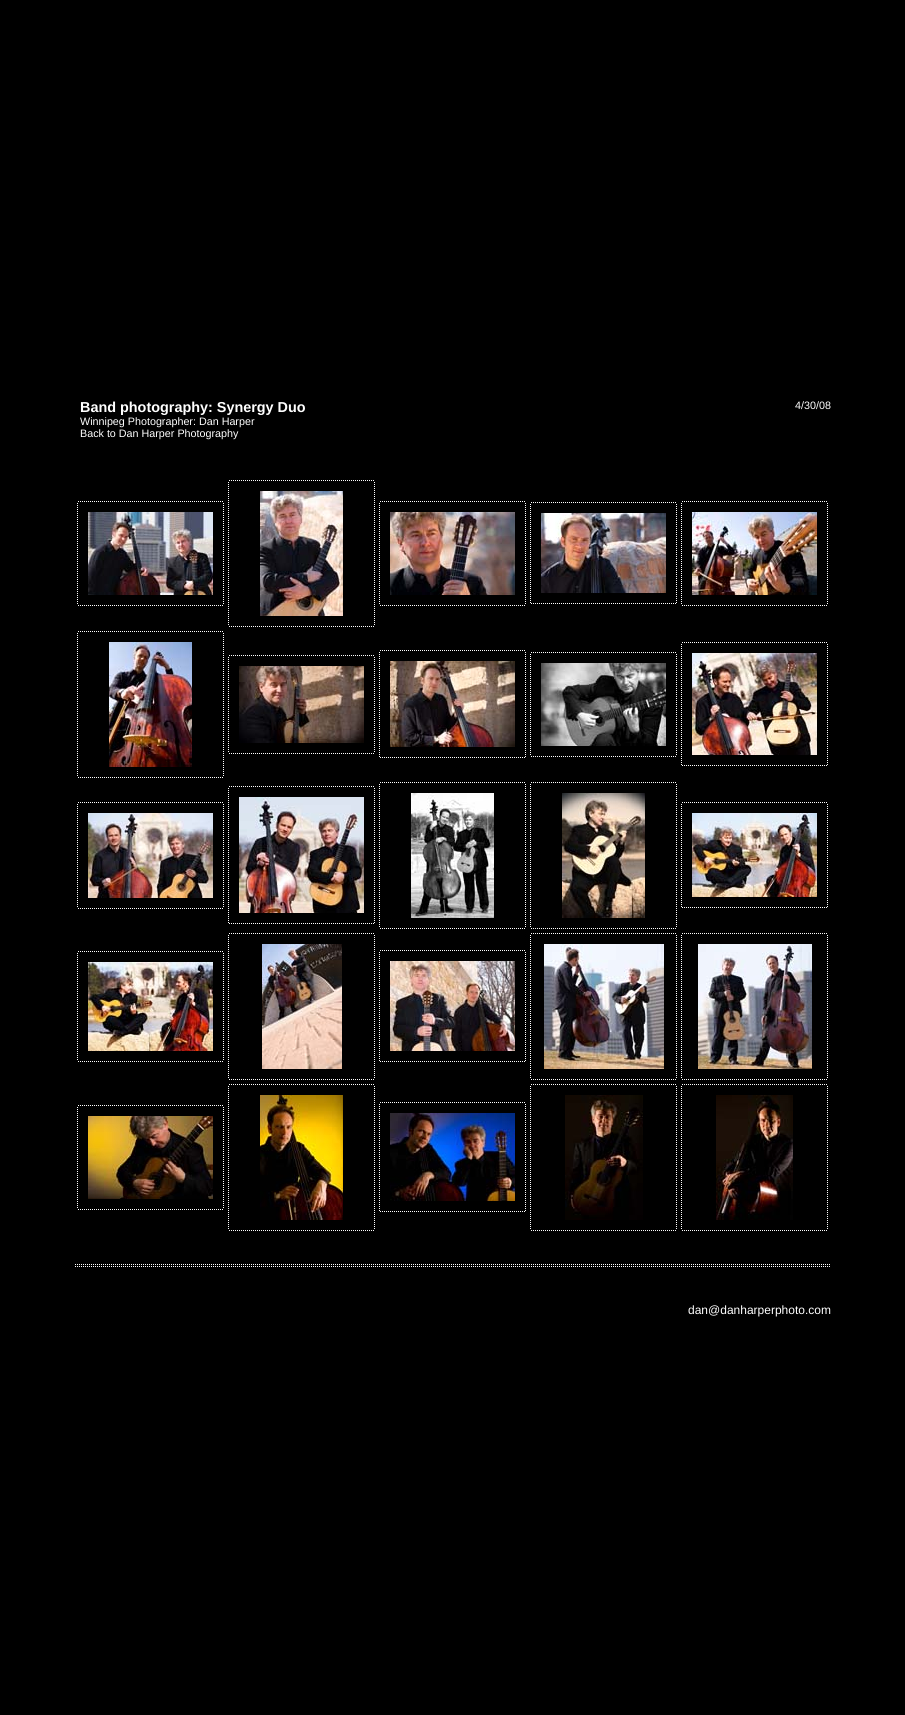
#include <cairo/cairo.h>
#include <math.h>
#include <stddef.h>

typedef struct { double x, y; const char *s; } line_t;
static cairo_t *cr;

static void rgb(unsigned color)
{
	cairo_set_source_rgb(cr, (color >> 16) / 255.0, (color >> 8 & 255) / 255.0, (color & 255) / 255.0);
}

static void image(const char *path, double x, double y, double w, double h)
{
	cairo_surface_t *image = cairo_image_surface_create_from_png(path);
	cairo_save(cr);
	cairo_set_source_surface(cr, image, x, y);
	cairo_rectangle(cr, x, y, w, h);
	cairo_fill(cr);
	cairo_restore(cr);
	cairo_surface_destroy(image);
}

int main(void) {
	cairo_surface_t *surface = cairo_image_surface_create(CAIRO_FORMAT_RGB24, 905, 1715);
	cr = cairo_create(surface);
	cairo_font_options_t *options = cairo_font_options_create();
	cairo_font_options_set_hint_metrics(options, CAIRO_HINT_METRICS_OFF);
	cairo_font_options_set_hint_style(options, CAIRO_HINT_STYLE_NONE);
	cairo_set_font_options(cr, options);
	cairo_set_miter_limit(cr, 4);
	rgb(0x000000);
	cairo_paint(cr);
	image("img/1.png", 78, 501, 145, 1);
	image("img/2.png", 77, 503, 1, 101);
	image("img/3.png", 88, 512, 125, 83);
	image("img/2.png", 223, 503, 1, 101);
	image("img/1.png", 78, 605, 145, 1);
	image("img/1.png", 229, 480, 145, 1);
	image("img/4.png", 228, 482, 1, 143);
	image("img/5.png", 260, 491, 83, 125);
	image("img/4.png", 374, 482, 1, 143);
	image("img/1.png", 229, 626, 145, 1);
	image("img/1.png", 380, 501, 145, 1);
	image("img/2.png", 379, 503, 1, 101);
	image("img/6.png", 390, 512, 125, 83);
	image("img/2.png", 525, 503, 1, 101);
	image("img/1.png", 380, 605, 145, 1);
	image("img/1.png", 531, 502, 145, 1);
	image("img/7.png", 530, 504, 1, 99);
	image("img/8.png", 541, 513, 125, 80);
	image("img/7.png", 676, 504, 1, 99);
	image("img/1.png", 531, 603, 145, 1);
	image("img/1.png", 682, 501, 145, 1);
	image("img/2.png", 681, 503, 1, 101);
	image("img/9.png", 692, 512, 125, 83);
	image("img/2.png", 827, 503, 1, 101);
	image("img/1.png", 682, 605, 145, 1);
	image("img/1.png", 78, 631, 145, 1);
	image("img/4.png", 77, 633, 1, 143);
	image("img/10.png", 109, 642, 83, 125);
	image("img/4.png", 223, 633, 1, 143);
	image("img/1.png", 78, 777, 145, 1);
	image("img/1.png", 229, 655, 145, 1);
	image("img/11.png", 228, 657, 1, 95);
	image("img/12.png", 239, 666, 125, 77);
	image("img/11.png", 374, 657, 1, 95);
	image("img/1.png", 229, 753, 145, 1);
	image("img/1.png", 380, 650, 145, 1);
	image("img/13.png", 379, 652, 1, 105);
	image("img/14.png", 390, 661, 125, 86);
	image("img/13.png", 525, 652, 1, 105);
	image("img/1.png", 380, 757, 145, 1);
	image("img/1.png", 531, 652, 145, 1);
	image("img/2.png", 530, 654, 1, 101);
	image("img/15.png", 541, 663, 125, 83);
	image("img/2.png", 676, 654, 1, 101);
	image("img/1.png", 531, 756, 145, 1);
	image("img/1.png", 682, 642, 145, 1);
	image("img/16.png", 681, 644, 1, 121);
	image("img/17.png", 692, 653, 125, 102);
	image("img/16.png", 827, 644, 1, 121);
	image("img/1.png", 682, 765, 145, 1);
	image("img/1.png", 78, 802, 145, 1);
	image("img/18.png", 77, 804, 1, 103);
	image("img/19.png", 88, 813, 125, 85);
	image("img/18.png", 223, 804, 1, 103);
	image("img/1.png", 78, 908, 145, 1);
	image("img/1.png", 229, 786, 145, 1);
	image("img/20.png", 228, 788, 1, 135);
	image("img/21.png", 239, 797, 125, 116);
	image("img/20.png", 374, 788, 1, 135);
	image("img/1.png", 229, 923, 145, 1);
	image("img/1.png", 380, 782, 145, 1);
	image("img/4.png", 379, 784, 1, 143);
	image("img/22.png", 411, 793, 83, 125);
	image("img/4.png", 525, 784, 1, 143);
	image("img/1.png", 380, 928, 145, 1);
	image("img/1.png", 531, 782, 145, 1);
	image("img/4.png", 530, 784, 1, 143);
	image("img/23.png", 562, 793, 83, 125);
	image("img/4.png", 676, 784, 1, 143);
	image("img/1.png", 531, 928, 145, 1);
	image("img/1.png", 682, 802, 145, 1);
	image("img/18.png", 681, 804, 1, 103);
	image("img/24.png", 692, 813, 125, 84);
	image("img/18.png", 827, 804, 1, 103);
	image("img/1.png", 682, 907, 145, 1);
	image("img/1.png", 78, 951, 145, 1);
	image("img/25.png", 77, 953, 1, 107);
	image("img/26.png", 88, 962, 125, 89);
	image("img/25.png", 223, 953, 1, 107);
	image("img/1.png", 78, 1061, 145, 1);
	image("img/1.png", 229, 933, 145, 1);
	image("img/4.png", 228, 935, 1, 143);
	image("img/27.png", 262, 944, 80, 125);
	image("img/4.png", 374, 935, 1, 143);
	image("img/1.png", 229, 1079, 145, 1);
	image("img/1.png", 380, 950, 145, 1);
	image("img/28.png", 379, 952, 1, 109);
	image("img/29.png", 390, 961, 125, 90);
	image("img/28.png", 525, 952, 1, 109);
	image("img/1.png", 380, 1061, 145, 1);
	image("img/1.png", 531, 933, 145, 1);
	image("img/4.png", 530, 935, 1, 143);
	image("img/30.png", 544, 944, 120, 125);
	image("img/4.png", 676, 935, 1, 143);
	image("img/1.png", 531, 1079, 145, 1);
	image("img/1.png", 682, 933, 145, 1);
	image("img/4.png", 681, 935, 1, 143);
	image("img/31.png", 698, 944, 114, 125);
	image("img/4.png", 827, 935, 1, 143);
	image("img/1.png", 682, 1079, 145, 1);
	image("img/1.png", 78, 1105, 145, 1);
	image("img/2.png", 77, 1107, 1, 101);
	image("img/32.png", 88, 1116, 125, 83);
	image("img/2.png", 223, 1107, 1, 101);
	image("img/1.png", 78, 1209, 145, 1);
	image("img/1.png", 229, 1084, 145, 1);
	image("img/4.png", 228, 1086, 1, 143);
	image("img/33.png", 260, 1095, 83, 125);
	image("img/4.png", 374, 1086, 1, 143);
	image("img/1.png", 229, 1230, 145, 1);
	image("img/1.png", 380, 1102, 145, 1);
	image("img/25.png", 379, 1104, 1, 107);
	image("img/34.png", 390, 1113, 125, 88);
	image("img/25.png", 525, 1104, 1, 107);
	image("img/1.png", 380, 1211, 145, 1);
	image("img/1.png", 531, 1084, 145, 1);
	image("img/4.png", 530, 1086, 1, 143);
	image("img/35.png", 565, 1095, 78, 125);
	image("img/4.png", 676, 1086, 1, 143);
	image("img/1.png", 531, 1230, 145, 1);
	image("img/1.png", 682, 1084, 145, 1);
	image("img/4.png", 681, 1086, 1, 143);
	image("img/36.png", 716, 1095, 77, 125);
	image("img/4.png", 827, 1086, 1, 143);
	image("img/1.png", 682, 1230, 145, 1);
	image("img/37.png", 75, 1264, 755, 1);
	image("img/37.png", 75, 1266, 755, 1);
	cairo_select_font_face(cr, "Liberation Sans", CAIRO_FONT_SLANT_NORMAL, CAIRO_FONT_WEIGHT_BOLD);
	cairo_set_font_size(cr, 14.4);
	rgb(0xffffff);
	cairo_move_to(cr, 80, 412);
	cairo_show_text(cr, "Band photography: Synergy Duo");
	cairo_select_font_face(cr, "Liberation Sans", CAIRO_FONT_SLANT_NORMAL, CAIRO_FONT_WEIGHT_NORMAL);
	cairo_set_font_size(cr, 10.75);
	{
		static const line_t items[] = {
			{80, 425, "Winnipeg Photographer: Dan Harper"},
			{80, 437, "Back to Dan Harper Photography"},
			{795, 409, "4/30/08"},
		};
		for (size_t i = 0; i < sizeof items / sizeof *items; i++) {
			cairo_move_to(cr, items[i].x, items[i].y);
			cairo_show_text(cr, items[i].s);
		}
	}
	cairo_set_font_size(cr, 12);
	cairo_move_to(cr, 688, 1314);
	cairo_show_text(cr, "dan@danharperphoto.com");
	cairo_surface_write_to_png(surface, "page.png");
	cairo_font_options_destroy(options);
	cairo_destroy(cr);
	cairo_surface_destroy(surface);
	return 0;
}
